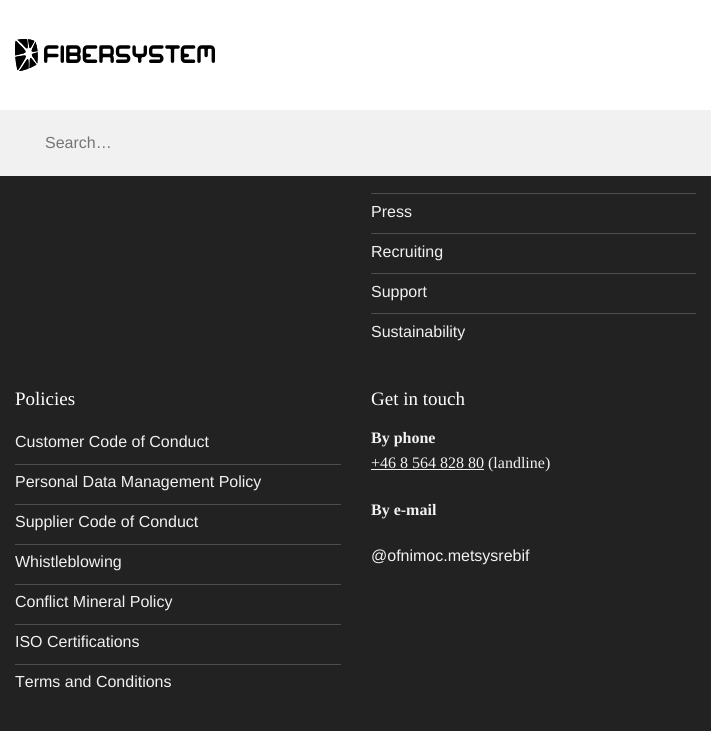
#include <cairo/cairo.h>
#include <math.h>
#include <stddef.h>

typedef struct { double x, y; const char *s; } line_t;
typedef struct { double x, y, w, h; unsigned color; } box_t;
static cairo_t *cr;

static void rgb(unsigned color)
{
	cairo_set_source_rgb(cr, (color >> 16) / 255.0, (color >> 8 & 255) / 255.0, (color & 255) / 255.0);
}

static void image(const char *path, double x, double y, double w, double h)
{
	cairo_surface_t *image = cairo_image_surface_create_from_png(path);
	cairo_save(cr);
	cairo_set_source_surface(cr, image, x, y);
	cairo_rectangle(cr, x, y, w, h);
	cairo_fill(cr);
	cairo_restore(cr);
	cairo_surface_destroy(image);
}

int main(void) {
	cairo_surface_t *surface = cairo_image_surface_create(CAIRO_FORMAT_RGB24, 711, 731);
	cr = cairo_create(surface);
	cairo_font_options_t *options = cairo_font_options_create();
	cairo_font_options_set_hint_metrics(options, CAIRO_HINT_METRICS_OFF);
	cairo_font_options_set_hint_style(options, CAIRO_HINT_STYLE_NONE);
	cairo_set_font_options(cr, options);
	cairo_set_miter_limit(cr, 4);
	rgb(0x222222);
	cairo_paint(cr);
	rgb(0xffffff);
	cairo_rectangle(cr, 0, 0, 711, 110);
	cairo_fill(cr);
	image("img/1.png", 15, 39, 200, 32);
	{
		static const box_t items[] = {
			{0, 110, 711, 66, 0xf1f1f1},
			{371, 193, 325, 1, 0x4e4e4e},
			{371, 233, 325, 1, 0x4e4e4e},
			{371, 273, 325, 1, 0x4e4e4e},
			{371, 313, 325, 1, 0x4e4e4e},
			{15, 464, 326, 1, 0x4e4e4e},
			{15, 504, 326, 1, 0x4e4e4e},
			{15, 544, 326, 1, 0x4e4e4e},
			{15, 584, 326, 1, 0x4e4e4e},
			{15, 624, 326, 1, 0x4e4e4e},
			{15, 664, 326, 1, 0x4e4e4e},
			{371, 469, 113, 1, 0xf1f1f1},
		};
		for (size_t i = 0; i < sizeof items / sizeof *items; i++) {
			rgb(items[i].color);
			cairo_rectangle(cr, items[i].x, items[i].y, items[i].w, items[i].h);
			cairo_fill(cr);
		}
	}
	cairo_select_font_face(cr, "Liberation Sans", CAIRO_FONT_SLANT_NORMAL, CAIRO_FONT_WEIGHT_NORMAL);
	cairo_set_font_size(cr, 16);
	rgb(0x757575);
	cairo_move_to(cr, 45, 148);
	cairo_show_text(cr, "Search…");
	rgb(0xf1f1f1);
	{
		static const line_t items[] = {
			{371, 217, "Press"},
			{371, 257, "Recruiting"},
			{371, 297, "Support"},
			{371, 337, "Sustainability"},
		};
		for (size_t i = 0; i < sizeof items / sizeof *items; i++) {
			cairo_move_to(cr, items[i].x, items[i].y);
			cairo_show_text(cr, items[i].s);
		}
	}
	cairo_select_font_face(cr, "Liberation Serif", CAIRO_FONT_SLANT_NORMAL, CAIRO_FONT_WEIGHT_NORMAL);
	cairo_set_font_size(cr, 19);
	rgb(0xffffff);
	cairo_move_to(cr, 15, 405);
	cairo_show_text(cr, "Policies");
	cairo_select_font_face(cr, "Liberation Sans", CAIRO_FONT_SLANT_NORMAL, CAIRO_FONT_WEIGHT_NORMAL);
	cairo_set_font_size(cr, 16);
	rgb(0xf1f1f1);
	{
		static const line_t items[] = {
			{15, 447, "Customer Code of Conduct"},
			{15, 487, "Personal Data Management Policy"},
			{15, 527, "Supplier Code of Conduct"},
			{15, 567, "Whistleblowing"},
			{15, 607, "Conflict Mineral Policy"},
			{15, 647, "ISO Certifications"},
			{15, 687, "Terms and Conditions"},
		};
		for (size_t i = 0; i < sizeof items / sizeof *items; i++) {
			cairo_move_to(cr, items[i].x, items[i].y);
			cairo_show_text(cr, items[i].s);
		}
	}
	cairo_select_font_face(cr, "Liberation Serif", CAIRO_FONT_SLANT_NORMAL, CAIRO_FONT_WEIGHT_NORMAL);
	cairo_set_font_size(cr, 19);
	rgb(0xffffff);
	cairo_move_to(cr, 371, 405);
	cairo_show_text(cr, "Get in touch");
	cairo_select_font_face(cr, "Liberation Serif", CAIRO_FONT_SLANT_NORMAL, CAIRO_FONT_WEIGHT_BOLD);
	cairo_set_font_size(cr, 16);
	rgb(0xf1f1f1);
	cairo_move_to(cr, 371, 443);
	cairo_show_text(cr, "By phone");
	cairo_select_font_face(cr, "Liberation Serif", CAIRO_FONT_SLANT_NORMAL, CAIRO_FONT_WEIGHT_NORMAL);
	cairo_move_to(cr, 371, 468);
	cairo_show_text(cr, "+46 8 564 828 80 (landline)");
	cairo_select_font_face(cr, "Liberation Serif", CAIRO_FONT_SLANT_NORMAL, CAIRO_FONT_WEIGHT_BOLD);
	cairo_move_to(cr, 371, 515);
	cairo_show_text(cr, "By e-mail");
	cairo_select_font_face(cr, "Liberation Sans", CAIRO_FONT_SLANT_NORMAL, CAIRO_FONT_WEIGHT_NORMAL);
	cairo_move_to(cr, 371, 561);
	cairo_show_text(cr, "@ofni");
	cairo_move_to(cr, 413, 561);
	cairo_show_text(cr, "moc.metsysrebif");
	cairo_surface_write_to_png(surface, "page.png");
	cairo_font_options_destroy(options);
	cairo_destroy(cr);
	cairo_surface_destroy(surface);
	return 0;
}
